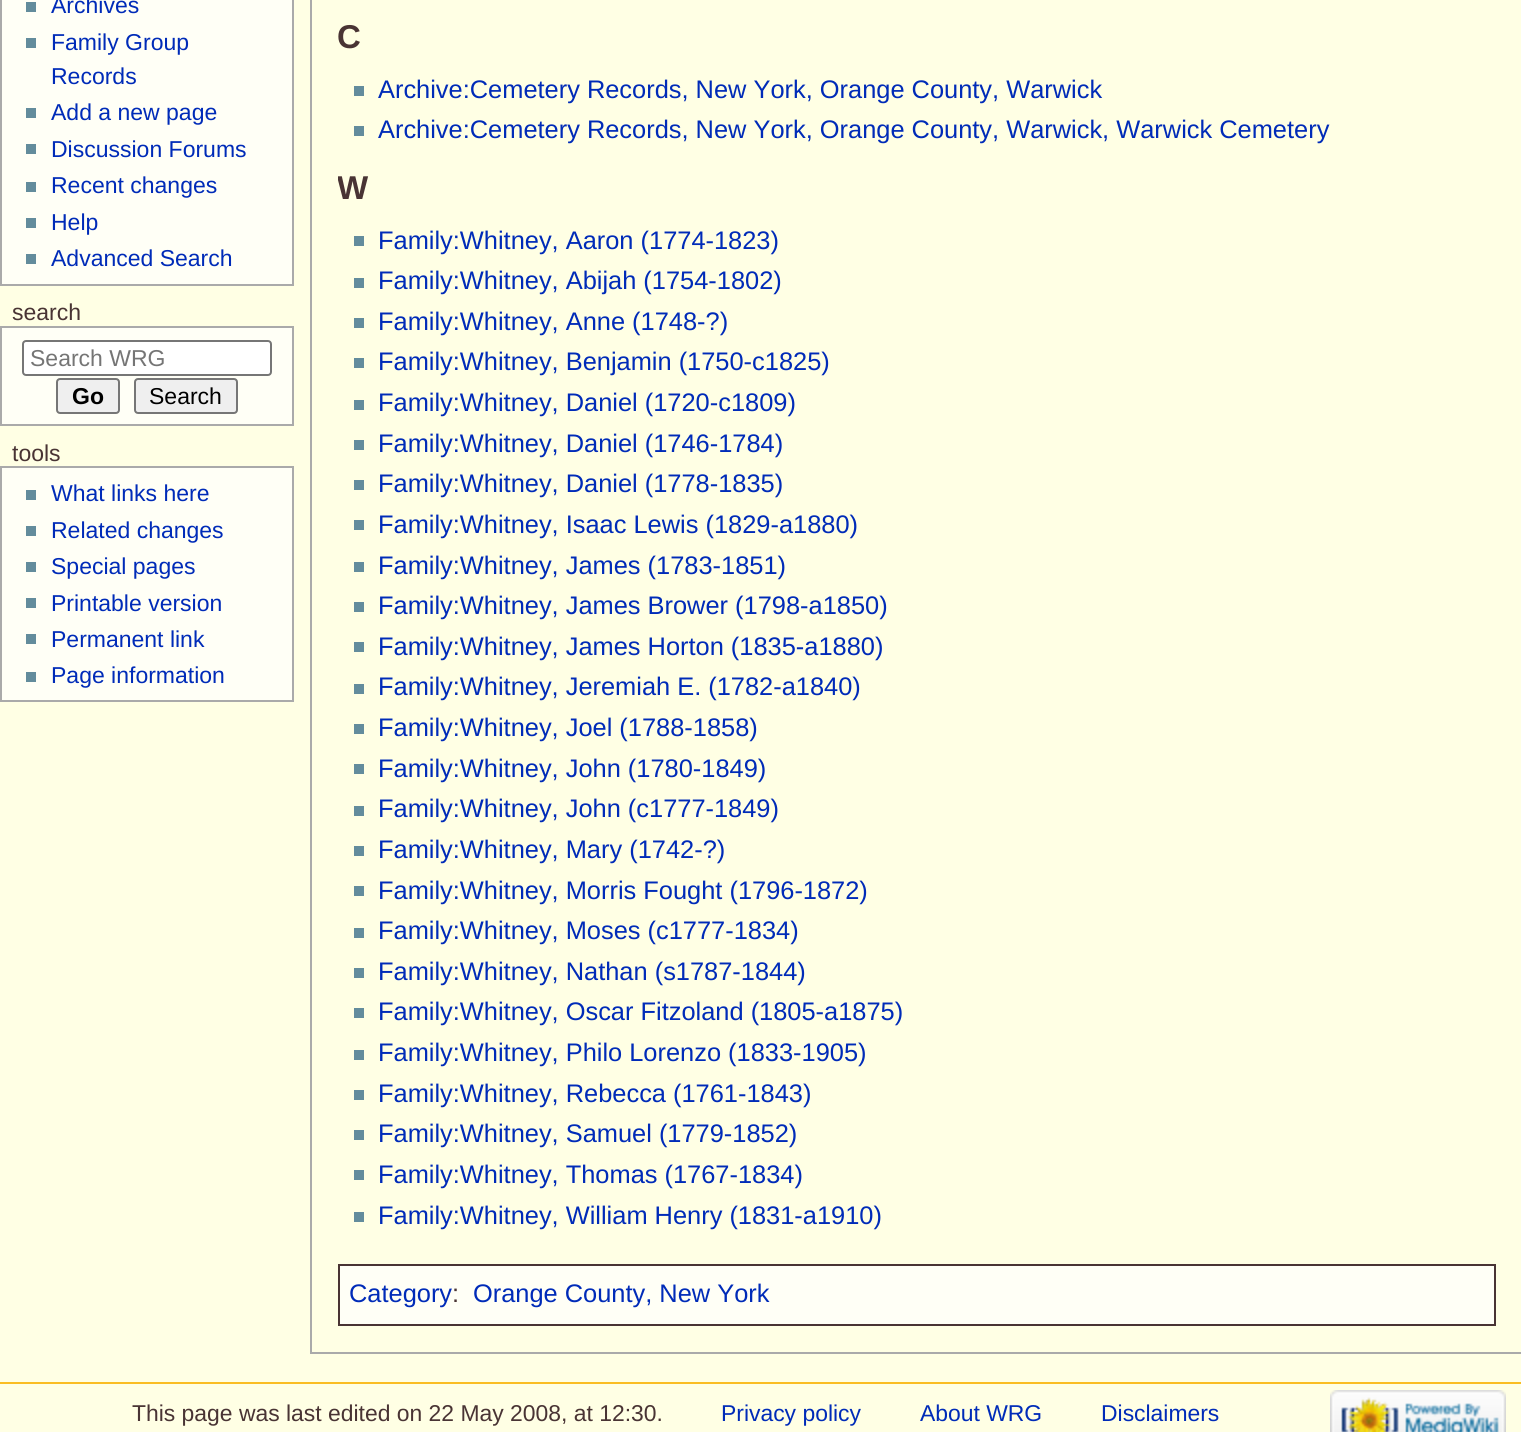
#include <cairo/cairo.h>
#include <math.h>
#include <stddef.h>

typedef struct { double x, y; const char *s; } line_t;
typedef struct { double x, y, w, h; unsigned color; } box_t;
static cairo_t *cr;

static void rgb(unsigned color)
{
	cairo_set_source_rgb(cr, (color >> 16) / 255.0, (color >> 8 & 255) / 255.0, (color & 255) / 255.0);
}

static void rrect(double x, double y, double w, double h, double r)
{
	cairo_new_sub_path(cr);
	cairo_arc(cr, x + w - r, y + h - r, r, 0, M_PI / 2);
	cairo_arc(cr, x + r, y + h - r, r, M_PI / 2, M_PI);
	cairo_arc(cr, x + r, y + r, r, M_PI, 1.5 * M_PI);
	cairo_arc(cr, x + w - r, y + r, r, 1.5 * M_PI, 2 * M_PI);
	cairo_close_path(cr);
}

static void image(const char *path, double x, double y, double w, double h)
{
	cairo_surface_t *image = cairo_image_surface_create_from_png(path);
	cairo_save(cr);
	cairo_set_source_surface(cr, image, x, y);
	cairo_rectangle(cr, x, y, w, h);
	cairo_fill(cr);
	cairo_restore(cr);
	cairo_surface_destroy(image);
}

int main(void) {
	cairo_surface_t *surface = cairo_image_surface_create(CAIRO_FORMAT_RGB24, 1521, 1432);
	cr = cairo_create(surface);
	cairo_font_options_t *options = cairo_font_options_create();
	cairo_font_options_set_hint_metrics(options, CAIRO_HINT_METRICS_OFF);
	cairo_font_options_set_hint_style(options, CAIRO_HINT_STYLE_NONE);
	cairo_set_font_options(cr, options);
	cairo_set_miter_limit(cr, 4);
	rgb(0xffffe4);
	cairo_paint(cr);
	rgb(0xfffff6);
	cairo_rectangle(cr, 1, -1, 292, 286);
	cairo_fill_preserve(cr);
	rgb(0xaaaaaa);
	cairo_stroke(cr);
	{
		static const box_t items[] = {
			{26, 2, 10, 10, 0x638c9c},
			{26, 38, 10, 10, 0x638c9c},
			{26, 108, 10, 10, 0x638c9c},
			{26, 144, 10, 10, 0x638c9c},
			{26, 182, 10, 10, 0x638c9c},
			{26, 218, 10, 10, 0x638c9c},
			{26, 254, 10, 10, 0x638c9c},
		};
		for (size_t i = 0; i < sizeof items / sizeof *items; i++) {
			rgb(items[i].color);
			cairo_rectangle(cr, items[i].x, items[i].y, items[i].w, items[i].h);
			cairo_fill(cr);
		}
	}
	rgb(0xfffff6);
	cairo_rectangle(cr, 1, 327, 292, 98);
	cairo_fill_preserve(cr);
	rgb(0xaaaaaa);
	cairo_stroke(cr);
	rgb(0xffffff);
	rrect(23, 341, 248, 34, 3);
	cairo_fill_preserve(cr);
	rgb(0x767676);
	cairo_stroke(cr);
	rgb(0xefefef);
	rrect(57, 379, 62, 34, 3);
	cairo_fill_preserve(cr);
	rgb(0x767676);
	cairo_stroke(cr);
	rgb(0xefefef);
	rrect(135, 379, 102, 34, 3);
	cairo_fill_preserve(cr);
	rgb(0x767676);
	cairo_stroke(cr);
	rgb(0xfffff6);
	cairo_rectangle(cr, 1, 467, 292, 234);
	cairo_fill_preserve(cr);
	rgb(0xaaaaaa);
	cairo_stroke(cr);
	{
		static const box_t items[] = {
			{26, 490, 10, 10, 0x638c9c},
			{26, 526, 10, 10, 0x638c9c},
			{26, 562, 10, 10, 0x638c9c},
			{26, 598, 10, 10, 0x638c9c},
			{26, 634, 10, 10, 0x638c9c},
			{26, 672, 10, 10, 0x638c9c},
			{310, 1352, 1211, 2, 0xaaaaaa},
			{310, 0, 2, 1354, 0xaaaaaa},
			{354, 86, 10, 10, 0x638c9c},
			{354, 126, 10, 10, 0x638c9c},
			{354, 236, 10, 10, 0x638c9c},
			{354, 278, 10, 10, 0x638c9c},
			{354, 318, 10, 10, 0x638c9c},
			{354, 358, 10, 10, 0x638c9c},
			{354, 400, 10, 10, 0x638c9c},
			{354, 440, 10, 10, 0x638c9c},
			{354, 480, 10, 10, 0x638c9c},
			{354, 520, 10, 10, 0x638c9c},
			{354, 562, 10, 10, 0x638c9c},
			{354, 602, 10, 10, 0x638c9c},
			{354, 642, 10, 10, 0x638c9c},
			{354, 684, 10, 10, 0x638c9c},
			{354, 724, 10, 10, 0x638c9c},
			{354, 764, 10, 10, 0x638c9c},
			{354, 806, 10, 10, 0x638c9c},
			{354, 846, 10, 10, 0x638c9c},
			{354, 886, 10, 10, 0x638c9c},
			{354, 928, 10, 10, 0x638c9c},
			{354, 968, 10, 10, 0x638c9c},
			{354, 1008, 10, 10, 0x638c9c},
			{354, 1050, 10, 10, 0x638c9c},
			{354, 1090, 10, 10, 0x638c9c},
			{354, 1130, 10, 10, 0x638c9c},
			{354, 1170, 10, 10, 0x638c9c},
			{354, 1212, 10, 10, 0x638c9c},
		};
		for (size_t i = 0; i < sizeof items / sizeof *items; i++) {
			rgb(items[i].color);
			cairo_rectangle(cr, items[i].x, items[i].y, items[i].w, items[i].h);
			cairo_fill(cr);
		}
	}
	rgb(0xfffff6);
	cairo_rectangle(cr, 339, 1265, 1156, 60);
	cairo_fill_preserve(cr);
	rgb(0x493434);
	cairo_stroke(cr);
	rgb(0xfabd23);
	cairo_rectangle(cr, 0, 1382, 1521, 2);
	cairo_fill(cr);
	image("img/1.png", 1330, 1390, 176, 42);
	cairo_select_font_face(cr, "Liberation Sans", CAIRO_FONT_SLANT_NORMAL, CAIRO_FONT_WEIGHT_NORMAL);
	cairo_set_font_size(cr, 23);
	rgb(0x002bb8);
	{
		static const line_t items[] = {
			{51, 13, "Archives"},
			{51, 50, "Family Group"},
			{51, 84, "Records"},
			{51, 120, "Add a new page"},
			{51, 157, "Discussion Forums"},
			{51, 193, "Recent changes"},
			{51, 230, "Help"},
			{51, 266, "Advanced Search"},
		};
		for (size_t i = 0; i < sizeof items / sizeof *items; i++) {
			cairo_move_to(cr, items[i].x, items[i].y);
			cairo_show_text(cr, items[i].s);
		}
	}
	rgb(0x493434);
	cairo_move_to(cr, 12, 320);
	cairo_show_text(cr, "search");
	rgb(0x757575);
	cairo_move_to(cr, 30, 366);
	cairo_show_text(cr, "Search WRG");
	cairo_select_font_face(cr, "Liberation Sans", CAIRO_FONT_SLANT_NORMAL, CAIRO_FONT_WEIGHT_BOLD);
	rgb(0x000000);
	cairo_move_to(cr, 72, 404);
	cairo_show_text(cr, "Go");
	cairo_select_font_face(cr, "Liberation Sans", CAIRO_FONT_SLANT_NORMAL, CAIRO_FONT_WEIGHT_NORMAL);
	cairo_move_to(cr, 149, 404);
	cairo_show_text(cr, "Search");
	rgb(0x493434);
	cairo_move_to(cr, 12, 461);
	cairo_show_text(cr, "tools");
	rgb(0x002bb8);
	{
		static const line_t items[] = {
			{51, 501, "What links here"},
			{51, 538, "Related changes"},
			{51, 574, "Special pages"},
			{51, 611, "Printable version"},
			{51, 647, "Permanent link"},
			{51, 683, "Page information"},
		};
		for (size_t i = 0; i < sizeof items / sizeof *items; i++) {
			cairo_move_to(cr, items[i].x, items[i].y);
			cairo_show_text(cr, items[i].s);
		}
	}
	cairo_select_font_face(cr, "Liberation Sans", CAIRO_FONT_SLANT_NORMAL, CAIRO_FONT_WEIGHT_BOLD);
	cairo_set_font_size(cr, 33);
	rgb(0x493434);
	cairo_move_to(cr, 337, 48);
	cairo_show_text(cr, "C");
	cairo_select_font_face(cr, "Liberation Sans", CAIRO_FONT_SLANT_NORMAL, CAIRO_FONT_WEIGHT_NORMAL);
	cairo_set_font_size(cr, 25.4);
	rgb(0x002bb8);
	cairo_move_to(cr, 378, 98);
	cairo_show_text(cr, "Archive:Cemetery Records, New York, Orange County, Warwick");
	cairo_move_to(cr, 378, 138);
	cairo_show_text(cr, "Archive:Cemetery Records, New York, Orange County, Warwick, Warwick Cemetery");
	cairo_save(cr);
	cairo_rectangle(cr, 338, 152, 1158, 60);
	cairo_clip(cr);
	cairo_select_font_face(cr, "Liberation Sans", CAIRO_FONT_SLANT_NORMAL, CAIRO_FONT_WEIGHT_BOLD);
	cairo_set_font_size(cr, 33);
	rgb(0x493434);
	cairo_move_to(cr, 337, 199);
	cairo_show_text(cr, "W");
	cairo_restore(cr);
	{
		static const line_t items[] = {
			{378, 249, "Family:Whitney, Aaron (1774-1823)"},
			{378, 289, "Family:Whitney, Abijah (1754-1802)"},
			{378, 330, "Family:Whitney, Anne (1748-?)"},
			{378, 370, "Family:Whitney, Benjamin (1750-c1825)"},
			{378, 411, "Family:Whitney, Daniel (1720-c1809)"},
			{378, 452, "Family:Whitney, Daniel (1746-1784)"},
			{378, 492, "Family:Whitney, Daniel (1778-1835)"},
			{378, 533, "Family:Whitney, Isaac Lewis (1829-a1880)"},
			{378, 574, "Family:Whitney, James (1783-1851)"},
			{378, 614, "Family:Whitney, James Brower (1798-a1850)"},
			{378, 655, "Family:Whitney, James Horton (1835-a1880)"},
			{378, 695, "Family:Whitney, Jeremiah E. (1782-a1840)"},
			{378, 736, "Family:Whitney, Joel (1788-1858)"},
			{378, 777, "Family:Whitney, John (1780-1849)"},
			{378, 817, "Family:Whitney, John (c1777-1849)"},
			{378, 858, "Family:Whitney, Mary (1742-?)"},
			{378, 899, "Family:Whitney, Morris Fought (1796-1872)"},
			{378, 939, "Family:Whitney, Moses (c1777-1834)"},
			{378, 980, "Family:Whitney, Nathan (s1787-1844)"},
			{378, 1020, "Family:Whitney, Oscar Fitzoland (1805-a1875)"},
			{378, 1061, "Family:Whitney, Philo Lorenzo (1833-1905)"},
			{378, 1102, "Family:Whitney, Rebecca (1761-1843)"},
			{378, 1142, "Family:Whitney, Samuel (1779-1852)"},
			{378, 1183, "Family:Whitney, Thomas (1767-1834)"},
			{378, 1224, "Family:Whitney, William Henry (1831-a1910)"},
			{349, 1302, "Category"},
		};
		for (size_t i = 0; i < sizeof items / sizeof *items; i++) {
			cairo_move_to(cr, items[i].x, items[i].y);
			cairo_show_text(cr, items[i].s);
		}
	}
	rgb(0x493434);
	cairo_move_to(cr, 452, 1302);
	cairo_show_text(cr, ":");
	rgb(0x002bb8);
	cairo_move_to(cr, 473, 1302);
	cairo_show_text(cr, "Orange County, New York");
	cairo_set_font_size(cr, 22.9);
	rgb(0x493434);
	cairo_move_to(cr, 132, 1421);
	cairo_show_text(cr, "This page was last edited on 22 May 2008, at 12:30.");
	rgb(0x002bb8);
	{
		static const line_t items[] = {
			{721, 1421, "Privacy policy"},
			{920, 1421, "About WRG"},
			{1101, 1421, "Disclaimers"},
		};
		for (size_t i = 0; i < sizeof items / sizeof *items; i++) {
			cairo_move_to(cr, items[i].x, items[i].y);
			cairo_show_text(cr, items[i].s);
		}
	}
	cairo_surface_write_to_png(surface, "page.png");
	cairo_font_options_destroy(options);
	cairo_destroy(cr);
	cairo_surface_destroy(surface);
	return 0;
}
